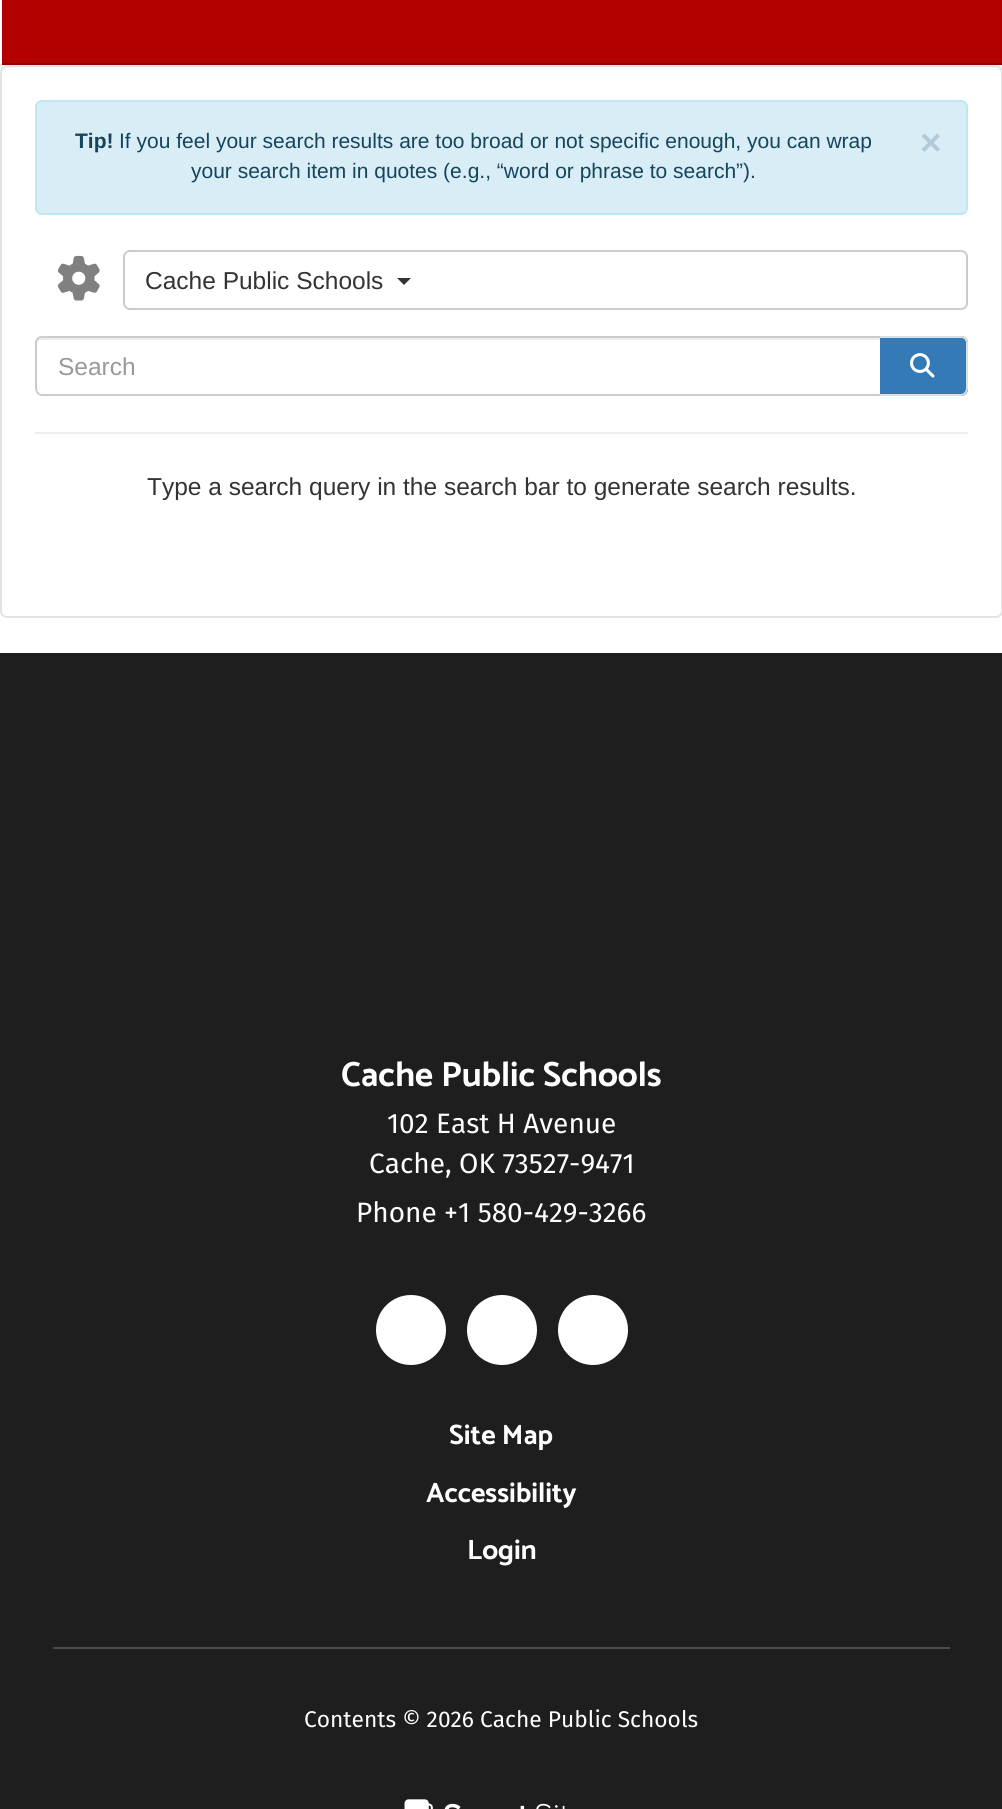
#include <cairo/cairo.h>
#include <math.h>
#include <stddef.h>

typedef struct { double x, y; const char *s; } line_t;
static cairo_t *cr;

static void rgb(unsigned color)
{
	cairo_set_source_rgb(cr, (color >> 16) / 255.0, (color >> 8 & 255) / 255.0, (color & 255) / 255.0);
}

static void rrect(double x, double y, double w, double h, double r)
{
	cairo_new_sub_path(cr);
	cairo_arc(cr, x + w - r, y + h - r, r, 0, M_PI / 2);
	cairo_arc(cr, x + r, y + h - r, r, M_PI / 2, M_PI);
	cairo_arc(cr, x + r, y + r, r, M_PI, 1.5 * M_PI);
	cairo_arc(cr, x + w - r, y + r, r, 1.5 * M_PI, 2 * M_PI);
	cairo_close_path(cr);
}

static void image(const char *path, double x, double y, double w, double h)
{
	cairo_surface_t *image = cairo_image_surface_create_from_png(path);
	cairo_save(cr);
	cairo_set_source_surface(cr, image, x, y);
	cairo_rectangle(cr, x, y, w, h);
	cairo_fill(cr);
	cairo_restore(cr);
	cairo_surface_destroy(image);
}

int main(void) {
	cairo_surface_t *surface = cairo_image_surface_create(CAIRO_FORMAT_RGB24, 1002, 1809);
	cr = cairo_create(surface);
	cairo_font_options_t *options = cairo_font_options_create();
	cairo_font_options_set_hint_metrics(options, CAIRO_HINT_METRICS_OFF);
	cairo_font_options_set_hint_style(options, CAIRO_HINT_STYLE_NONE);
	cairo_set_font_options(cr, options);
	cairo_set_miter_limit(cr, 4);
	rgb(0xffffff);
	cairo_paint(cr);
	rgb(0xb30100);
	cairo_rectangle(cr, 2, 0, 1000, 63);
	cairo_fill(cr);
	rgb(0x8f0100);
	cairo_rectangle(cr, 2, 63, 1000, 2);
	cairo_fill(cr);
	rgb(0xf2f2f2);
	cairo_new_path(cr);
	cairo_move_to(cr, 7, 68);
	cairo_line_to(cr, 996, 68);
	cairo_curve_to(cr, 999, 68, 1001, 71, 1001, 74);
	cairo_line_to(cr, 1001, 72);
	cairo_curve_to(cr, 1001, 69, 999, 67, 996, 67);
	cairo_line_to(cr, 7, 67);
	cairo_curve_to(cr, 4, 67, 2, 69, 2, 72);
	cairo_line_to(cr, 2, 74);
	cairo_curve_to(cr, 2, 71, 4, 68, 7, 68);
	cairo_close_path(cr);
	cairo_fill(cr);
	rrect(1, 66, 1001, 551, 6);
	rgb(0xe3e3e3);
	cairo_stroke(cr);
	rgb(0xd9edf7);
	rrect(36, 101, 931, 113, 6);
	cairo_fill_preserve(cr);
	rgb(0xbce8f1);
	cairo_stroke(cr);
	image("img/1.png", 57, 255, 43, 46);
	rrect(124, 251, 843, 58, 6);
	rgb(0xcccccc);
	cairo_stroke(cr);
	rgb(0x333333);
	cairo_new_path(cr);
	cairo_move_to(cr, 397, 278);
	cairo_line_to(cr, 411, 278);
	cairo_line_to(cr, 404, 285);
	cairo_close_path(cr);
	cairo_fill(cr);
	rgb(0xececec);
	cairo_new_path(cr);
	cairo_move_to(cr, 42, 340);
	cairo_line_to(cr, 880, 340);
	cairo_line_to(cr, 880, 338);
	cairo_line_to(cr, 42, 338);
	cairo_curve_to(cr, 38, 338, 37, 342, 37, 345);
	cairo_curve_to(cr, 37, 342, 39, 340, 42, 340);
	cairo_close_path(cr);
	cairo_fill(cr);
	rgb(0xcccccc);
	cairo_set_fill_rule(cr, CAIRO_FILL_RULE_EVEN_ODD);
	cairo_new_path(cr);
	cairo_move_to(cr, 42, 336);
	cairo_line_to(cr, 880, 336);
	cairo_line_to(cr, 880, 396);
	cairo_line_to(cr, 42, 396);
	cairo_curve_to(cr, 38, 396, 35, 392, 35, 388);
	cairo_line_to(cr, 35, 343);
	cairo_curve_to(cr, 35, 339, 38, 336, 42, 336);
	cairo_close_path(cr);
	cairo_move_to(cr, 42, 338);
	cairo_line_to(cr, 880, 338);
	cairo_line_to(cr, 880, 394);
	cairo_line_to(cr, 42, 394);
	cairo_curve_to(cr, 39, 394, 37, 391, 37, 388);
	cairo_line_to(cr, 37, 343);
	cairo_curve_to(cr, 37, 340, 39, 338, 42, 338);
	cairo_close_path(cr);
	cairo_fill(cr);
	rgb(0x337ab7);
	cairo_new_path(cr);
	cairo_move_to(cr, 880, 336);
	cairo_line_to(cr, 961, 336);
	cairo_curve_to(cr, 965, 336, 968, 339, 968, 343);
	cairo_line_to(cr, 968, 389);
	cairo_curve_to(cr, 968, 393, 965, 396, 961, 396);
	cairo_line_to(cr, 880, 396);
	cairo_close_path(cr);
	cairo_fill(cr);
	rgb(0xdddddd);
	cairo_new_path(cr);
	cairo_move_to(cr, 880, 336);
	cairo_line_to(cr, 961, 336);
	cairo_curve_to(cr, 965, 336, 968, 339, 968, 343);
	cairo_line_to(cr, 968, 388);
	cairo_curve_to(cr, 968, 392, 965, 396, 961, 396);
	cairo_line_to(cr, 880, 396);
	cairo_close_path(cr);
	cairo_move_to(cr, 880, 338);
	cairo_line_to(cr, 961, 338);
	cairo_curve_to(cr, 964, 338, 966, 340, 966, 343);
	cairo_line_to(cr, 966, 388);
	cairo_curve_to(cr, 966, 391, 964, 394, 961, 394);
	cairo_line_to(cr, 880, 394);
	cairo_close_path(cr);
	cairo_fill(cr);
	image("img/2.png", 910, 353, 25, 25);
	rgb(0xeeeeee);
	cairo_rectangle(cr, 35, 432, 933, 2);
	cairo_fill(cr);
	rgb(0x1e1e1e);
	cairo_rectangle(cr, 0, 653, 1002, 1156);
	cairo_fill(cr);
	rgb(0xffffff);
	cairo_arc(cr, 411, 1330, 35, 0, 2 * M_PI);
	cairo_fill(cr);
	cairo_arc(cr, 502, 1330, 35, 0, 2 * M_PI);
	cairo_fill(cr);
	cairo_arc(cr, 593, 1330, 35, 0, 2 * M_PI);
	cairo_fill(cr);
	rgb(0x4b4b4b);
	cairo_rectangle(cr, 53, 1647, 897, 2);
	cairo_fill(cr);
	image("img/3.png", 404, 1799, 161, 10);
	cairo_select_font_face(cr, "Liberation Sans", CAIRO_FONT_SLANT_NORMAL, CAIRO_FONT_WEIGHT_BOLD);
	cairo_set_font_size(cr, 21);
	rgb(0x14455b);
	cairo_move_to(cr, 75, 148);
	cairo_show_text(cr, "Tip!");
	cairo_select_font_face(cr, "Liberation Sans", CAIRO_FONT_SLANT_NORMAL, CAIRO_FONT_WEIGHT_NORMAL);
	cairo_move_to(cr, 119, 148);
	cairo_show_text(cr, "If you feel your search results are too broad or not specific enough, you can wrap");
	cairo_select_font_face(cr, "Liberation Sans", CAIRO_FONT_SLANT_NORMAL, CAIRO_FONT_WEIGHT_BOLD);
	cairo_set_font_size(cr, 37);
	rgb(0xb2cbd8);
	cairo_move_to(cr, 920, 155);
	cairo_show_text(cr, "×");
	cairo_select_font_face(cr, "Liberation Sans", CAIRO_FONT_SLANT_NORMAL, CAIRO_FONT_WEIGHT_NORMAL);
	cairo_set_font_size(cr, 21);
	rgb(0x14455b);
	cairo_move_to(cr, 191, 178);
	cairo_show_text(cr, "your search item in quotes (e.g., “word or phrase to search”).");
	cairo_set_font_size(cr, 24.5);
	rgb(0x333333);
	cairo_move_to(cr, 145, 289);
	cairo_show_text(cr, "Cache Public Schools");
	rgb(0x999999);
	cairo_move_to(cr, 58, 375);
	cairo_show_text(cr, "Search");
	rgb(0x333333);
	cairo_move_to(cr, 147, 495);
	cairo_show_text(cr, "Type a search query in the search bar to generate search results.");
	cairo_select_font_face(cr, "Catamaran Thin", CAIRO_FONT_SLANT_NORMAL, CAIRO_FONT_WEIGHT_NORMAL);
	cairo_set_font_size(cr, 35);
	rgb(0xffffff);
	cairo_move_to(cr, 341, 1086);
	cairo_show_text(cr, "Cache Public Schools");
	cairo_select_font_face(cr, "Fira Sans", CAIRO_FONT_SLANT_NORMAL, CAIRO_FONT_WEIGHT_NORMAL);
	cairo_set_font_size(cr, 28);
	{
		static const line_t items[] = {
			{387, 1133, "102 East H Avenue"},
			{369, 1173, "Cache, OK 73527-9471"},
			{356, 1222, "Phone +1 580-429-3266"},
		};
		for (size_t i = 0; i < sizeof items / sizeof *items; i++) {
			cairo_move_to(cr, items[i].x, items[i].y);
			cairo_show_text(cr, items[i].s);
		}
	}
	cairo_select_font_face(cr, "Catamaran Thin", CAIRO_FONT_SLANT_NORMAL, CAIRO_FONT_WEIGHT_NORMAL);
	{
		static const line_t items[] = {
			{449, 1444, "Site Map"},
			{426, 1502, "Accessibility"},
			{467, 1559, "Login"},
		};
		for (size_t i = 0; i < sizeof items / sizeof *items; i++) {
			cairo_move_to(cr, items[i].x, items[i].y);
			cairo_show_text(cr, items[i].s);
		}
	}
	cairo_select_font_face(cr, "Fira Sans", CAIRO_FONT_SLANT_NORMAL, CAIRO_FONT_WEIGHT_NORMAL);
	cairo_set_font_size(cr, 22.75);
	cairo_move_to(cr, 304, 1727);
	cairo_show_text(cr, "Contents © 2026 Cache Public Schools");
	cairo_surface_write_to_png(surface, "page.png");
	cairo_font_options_destroy(options);
	cairo_destroy(cr);
	cairo_surface_destroy(surface);
	return 0;
}
